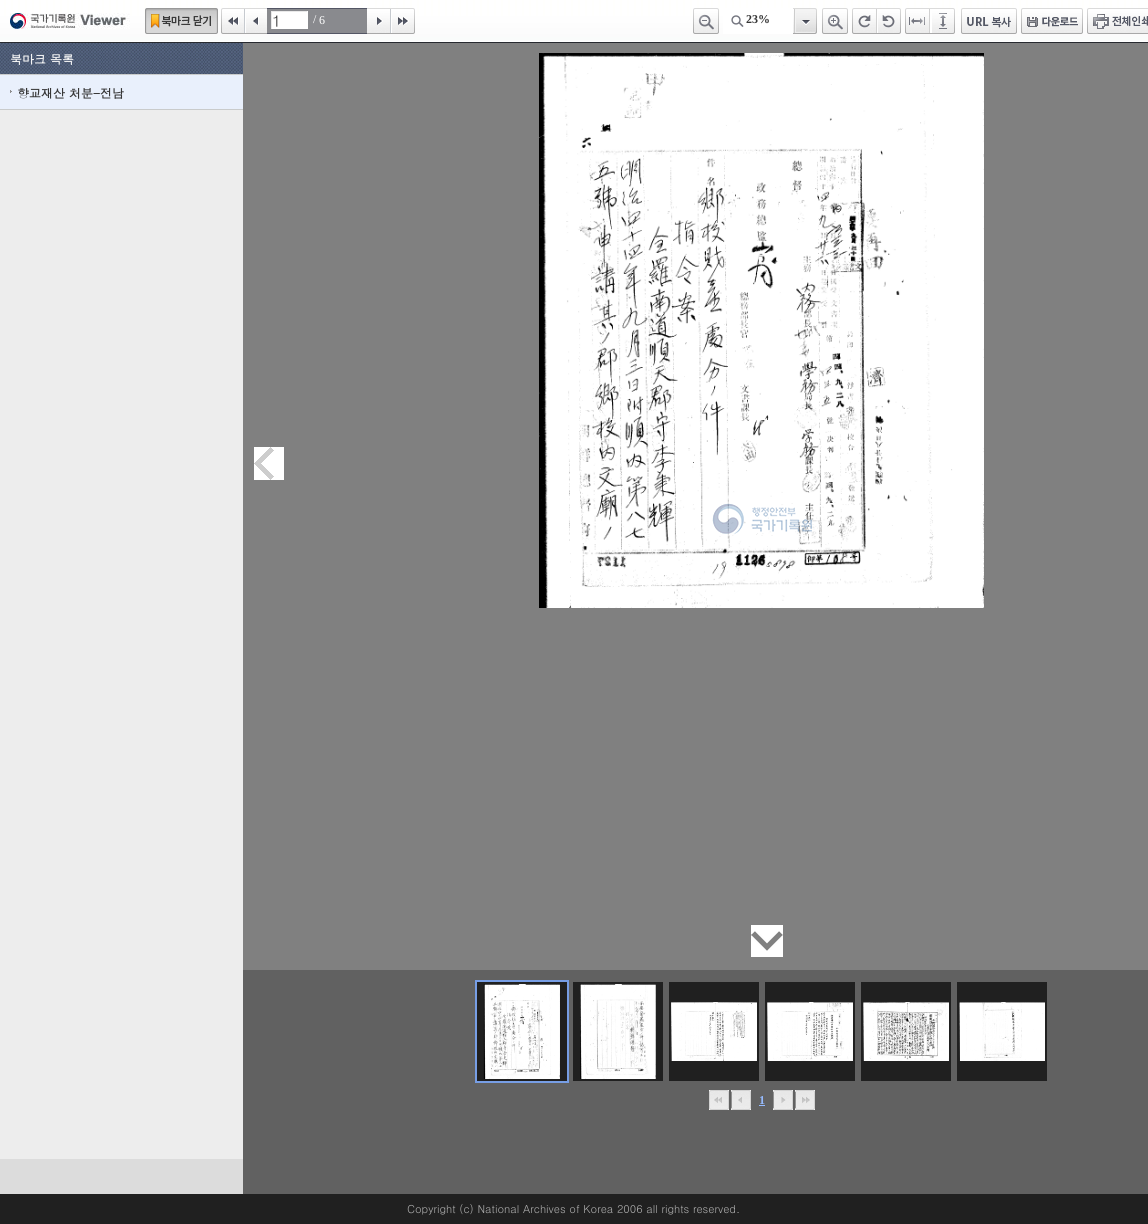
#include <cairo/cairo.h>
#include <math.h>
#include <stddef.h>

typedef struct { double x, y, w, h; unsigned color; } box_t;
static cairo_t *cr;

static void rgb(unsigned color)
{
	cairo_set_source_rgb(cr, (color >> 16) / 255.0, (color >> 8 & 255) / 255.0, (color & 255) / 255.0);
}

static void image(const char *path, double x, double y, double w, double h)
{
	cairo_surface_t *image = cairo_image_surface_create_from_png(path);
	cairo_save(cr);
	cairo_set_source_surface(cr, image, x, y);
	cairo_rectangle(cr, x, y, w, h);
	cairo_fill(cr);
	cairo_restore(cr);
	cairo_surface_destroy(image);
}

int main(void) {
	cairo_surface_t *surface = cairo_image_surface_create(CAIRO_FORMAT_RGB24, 1148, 1224);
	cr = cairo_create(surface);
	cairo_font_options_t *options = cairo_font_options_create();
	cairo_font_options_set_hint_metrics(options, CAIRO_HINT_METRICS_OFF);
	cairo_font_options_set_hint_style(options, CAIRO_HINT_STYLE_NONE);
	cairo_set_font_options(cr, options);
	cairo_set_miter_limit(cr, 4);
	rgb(0xdcdcdc);
	cairo_paint(cr);
	image("img/1.png", 0, 0, 1148, 42);
	rgb(0x27292f);
	cairo_rectangle(cr, 0, 42, 1148, 1);
	cairo_fill(cr);
	image("img/2.png", 10, 13, 120, 16);
	image("img/3.png", 145, 8, 73, 26);
	image("img/4.png", 221, 8, 24, 26);
	image("img/5.png", 245, 8, 22, 26);
	{
		static const box_t items[] = {
			{267, 9, 100, 24, 0x898a8e},
			{267, 8, 100, 1, 0x535664},
			{267, 33, 100, 1, 0x535664},
			{272, 12, 35, 17, 0xffffff},
			{271, 11, 37, 1, 0xe9e9e9},
			{307, 11, 1, 18, 0xffffff},
			{271, 11, 1, 18, 0xe9e9e9},
		};
		for (size_t i = 0; i < sizeof items / sizeof *items; i++) {
			rgb(items[i].color);
			cairo_rectangle(cr, items[i].x, items[i].y, items[i].w, items[i].h);
			cairo_fill(cr);
		}
	}
	image("img/6.png", 367, 8, 24, 26);
	image("img/7.png", 391, 8, 24, 26);
	image("img/8.png", 693, 8, 26, 26);
	image("img/9.png", 793, 8, 24, 26);
	image("img/10.png", 723, 8, 70, 26);
	image("img/11.png", 822, 8, 26, 26);
	image("img/12.png", 852, 8, 25, 26);
	image("img/13.png", 877, 8, 24, 26);
	image("img/14.png", 905, 8, 26, 26);
	image("img/15.png", 931, 8, 24, 26);
	image("img/16.png", 961, 8, 56, 26);
	image("img/17.png", 1021, 8, 62, 26);
	image("img/18.png", 1087, 8, 61, 26);
	rgb(0xededed);
	cairo_rectangle(cr, 0, 110, 243, 1049);
	cairo_fill(cr);
	image("img/19.png", 0, 43, 243, 31);
	rgb(0xc9cbcb);
	cairo_rectangle(cr, 0, 74, 243, 1);
	cairo_fill(cr);
	rgb(0xe9f0fc);
	cairo_rectangle(cr, 0, 75, 243, 34);
	cairo_fill(cr);
	image("img/20.png", 10, 90, 2, 3);
	rgb(0xc9cbcb);
	cairo_rectangle(cr, 0, 109, 243, 1);
	cairo_fill(cr);
	rgb(0x808080);
	cairo_rectangle(cr, 243, 43, 905, 927);
	cairo_fill(cr);
	image("img/21.png", 254, 447, 30, 33);
	image("img/22.png", 539, 53, 445, 555);
	image("img/23.png", 712, 503, 100, 33);
	rgb(0x616161);
	cairo_rectangle(cr, 243, 970, 905, 224);
	cairo_fill(cr);
	rgb(0xffffff);
	cairo_rectangle(cr, 751, 925, 32, 32);
	cairo_fill(cr);
	image("img/24.png", 751, 931, 32, 20);
	rgb(0x202020);
	cairo_rectangle(cr, 476, 981, 92, 101);
	cairo_fill_preserve(cr);
	rgb(0x779ee5);
	cairo_stroke(cr);
	image("img/25.png", 483, 984, 77, 95);
	image("img/26.png", 559, 984, 1, 95);
	rgb(0x202020);
	cairo_rectangle(cr, 573, 982, 90, 99);
	cairo_fill(cr);
	image("img/27.png", 580, 984, 76, 95);
	image("img/28.png", 580, 984, 76, 95);
	cairo_rectangle(cr, 669, 982, 90, 99);
	cairo_fill(cr);
	image("img/29.png", 671, 1002, 86, 59);
	cairo_rectangle(cr, 765, 982, 90, 99);
	cairo_fill(cr);
	image("img/30.png", 767, 1002, 86, 59);
	cairo_rectangle(cr, 861, 982, 90, 99);
	cairo_fill(cr);
	image("img/31.png", 863, 1002, 86, 59);
	cairo_rectangle(cr, 957, 982, 90, 99);
	cairo_fill(cr);
	image("img/32.png", 959, 1002, 86, 59);
	image("img/33.png", 709, 1090, 20, 20);
	image("img/34.png", 731, 1090, 20, 20);
	rgb(0x919191);
	cairo_rectangle(cr, 731, 1092, 1, 16);
	cairo_fill(cr);
	rgb(0x96bbff);
	cairo_rectangle(cr, 759, 1105, 6, 1);
	cairo_fill(cr);
	image("img/35.png", 773, 1090, 20, 20);
	rgb(0x919191);
	cairo_rectangle(cr, 773, 1092, 1, 16);
	cairo_fill(cr);
	image("img/36.png", 795, 1090, 20, 20);
	cairo_rectangle(cr, 795, 1092, 1, 16);
	cairo_fill(cr);
	rgb(0x202020);
	cairo_rectangle(cr, 0, 1194, 1148, 30);
	cairo_fill(cr);
	cairo_select_font_face(cr, "Dotum", CAIRO_FONT_SLANT_NORMAL, CAIRO_FONT_WEIGHT_NORMAL);
	cairo_set_font_size(cr, 16);
	rgb(0x363636);
	cairo_move_to(cr, 272, 27);
	cairo_show_text(cr, "1");
	cairo_select_font_face(cr, "Liberation Serif", CAIRO_FONT_SLANT_NORMAL, CAIRO_FONT_WEIGHT_NORMAL);
	cairo_set_font_size(cr, 12);
	rgb(0xffffff);
	cairo_move_to(cr, 313, 23);
	cairo_show_text(cr, "/");
	cairo_move_to(cr, 319, 24);
	cairo_show_text(cr, "6");
	cairo_select_font_face(cr, "Liberation Serif", CAIRO_FONT_SLANT_NORMAL, CAIRO_FONT_WEIGHT_BOLD);
	rgb(0x363636);
	cairo_move_to(cr, 746, 23);
	cairo_show_text(cr, "23%");
	cairo_select_font_face(cr, "Dotum", CAIRO_FONT_SLANT_NORMAL, CAIRO_FONT_WEIGHT_BOLD);
	rgb(0xf5f5f5);
	cairo_move_to(cr, 10, 64);
	cairo_show_text(cr, "북마크 목록");
	rgb(0x363636);
	cairo_move_to(cr, 17, 98);
	cairo_show_text(cr, "향교재산 처분-전남");
	cairo_select_font_face(cr, "Liberation Serif", CAIRO_FONT_SLANT_NORMAL, CAIRO_FONT_WEIGHT_BOLD);
	rgb(0x96bbff);
	cairo_move_to(cr, 759, 1104);
	cairo_show_text(cr, "1");
	cairo_select_font_face(cr, "Dotum", CAIRO_FONT_SLANT_NORMAL, CAIRO_FONT_WEIGHT_NORMAL);
	cairo_set_font_size(cr, 11);
	rgb(0xafafaf);
	cairo_move_to(cr, 407, 1213);
	cairo_show_text(cr, "Copyright (c) National Archives of Korea 2006 all rights reserved.");
	cairo_surface_write_to_png(surface, "page.png");
	cairo_font_options_destroy(options);
	cairo_destroy(cr);
	cairo_surface_destroy(surface);
	return 0;
}
